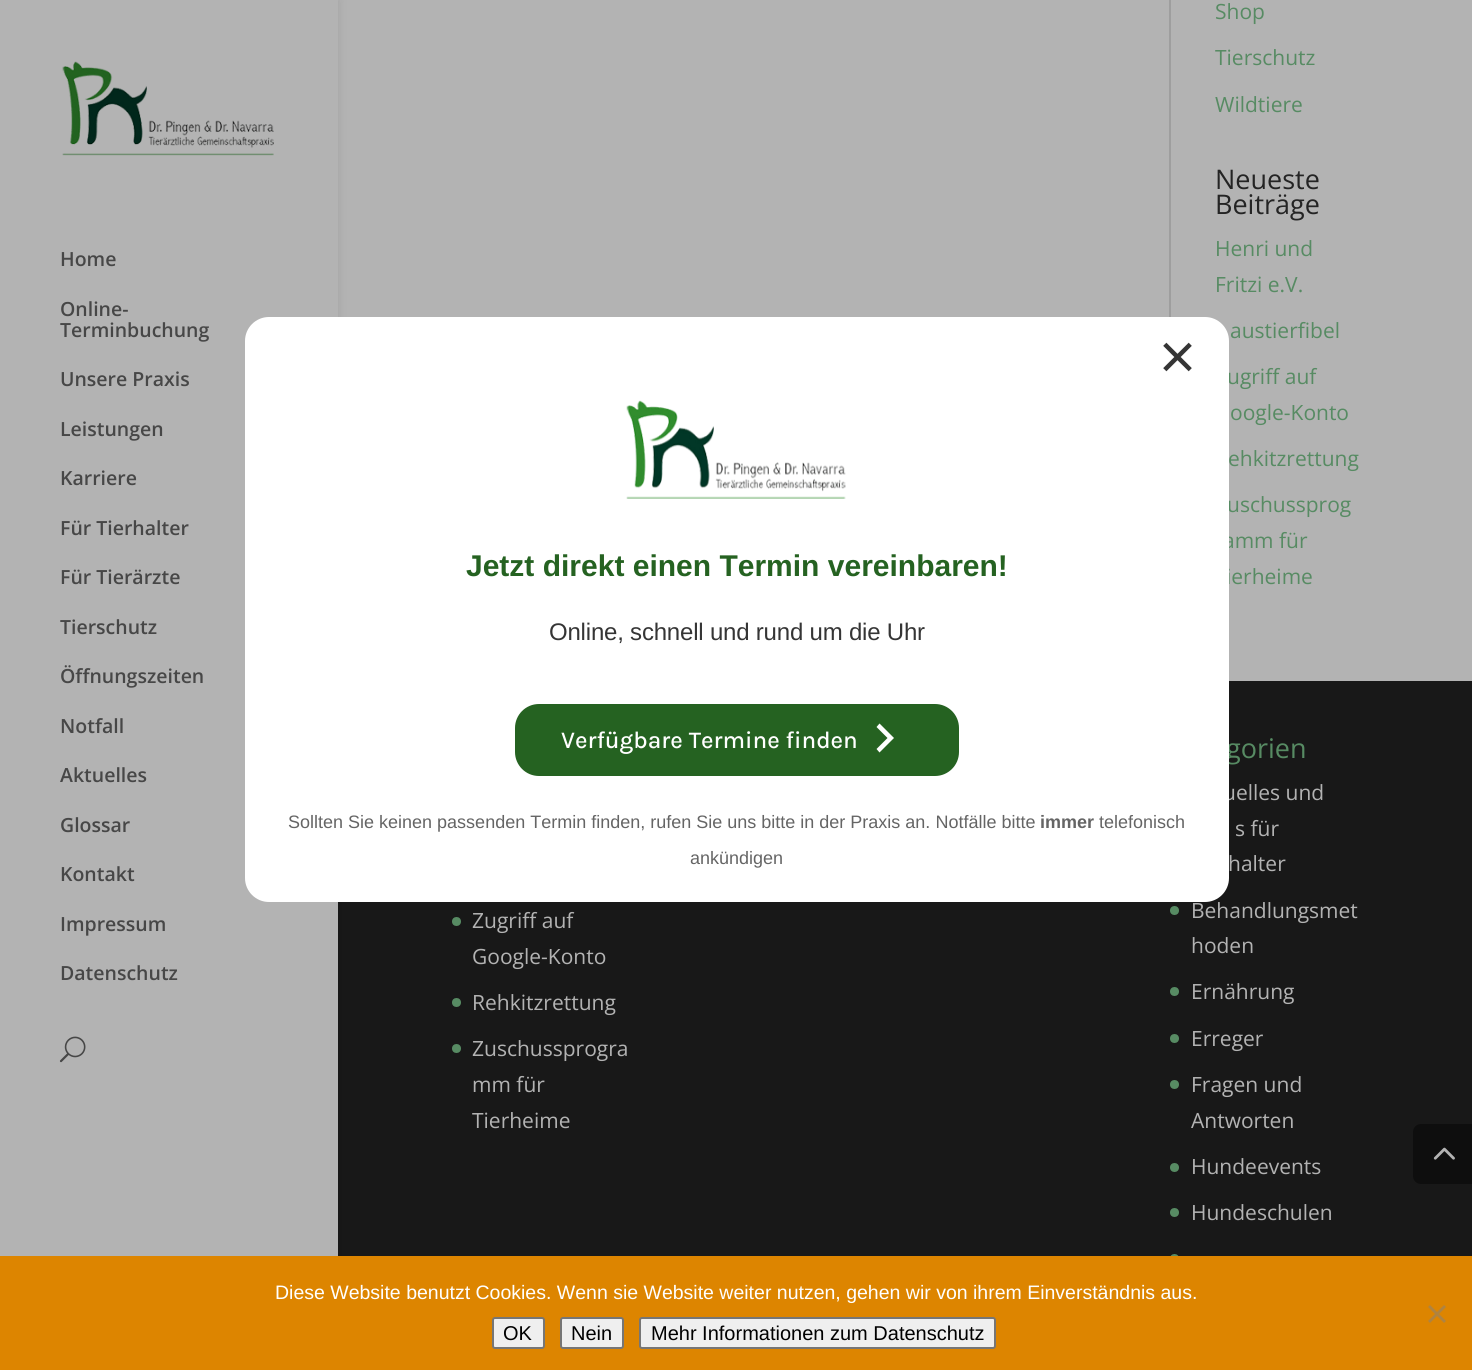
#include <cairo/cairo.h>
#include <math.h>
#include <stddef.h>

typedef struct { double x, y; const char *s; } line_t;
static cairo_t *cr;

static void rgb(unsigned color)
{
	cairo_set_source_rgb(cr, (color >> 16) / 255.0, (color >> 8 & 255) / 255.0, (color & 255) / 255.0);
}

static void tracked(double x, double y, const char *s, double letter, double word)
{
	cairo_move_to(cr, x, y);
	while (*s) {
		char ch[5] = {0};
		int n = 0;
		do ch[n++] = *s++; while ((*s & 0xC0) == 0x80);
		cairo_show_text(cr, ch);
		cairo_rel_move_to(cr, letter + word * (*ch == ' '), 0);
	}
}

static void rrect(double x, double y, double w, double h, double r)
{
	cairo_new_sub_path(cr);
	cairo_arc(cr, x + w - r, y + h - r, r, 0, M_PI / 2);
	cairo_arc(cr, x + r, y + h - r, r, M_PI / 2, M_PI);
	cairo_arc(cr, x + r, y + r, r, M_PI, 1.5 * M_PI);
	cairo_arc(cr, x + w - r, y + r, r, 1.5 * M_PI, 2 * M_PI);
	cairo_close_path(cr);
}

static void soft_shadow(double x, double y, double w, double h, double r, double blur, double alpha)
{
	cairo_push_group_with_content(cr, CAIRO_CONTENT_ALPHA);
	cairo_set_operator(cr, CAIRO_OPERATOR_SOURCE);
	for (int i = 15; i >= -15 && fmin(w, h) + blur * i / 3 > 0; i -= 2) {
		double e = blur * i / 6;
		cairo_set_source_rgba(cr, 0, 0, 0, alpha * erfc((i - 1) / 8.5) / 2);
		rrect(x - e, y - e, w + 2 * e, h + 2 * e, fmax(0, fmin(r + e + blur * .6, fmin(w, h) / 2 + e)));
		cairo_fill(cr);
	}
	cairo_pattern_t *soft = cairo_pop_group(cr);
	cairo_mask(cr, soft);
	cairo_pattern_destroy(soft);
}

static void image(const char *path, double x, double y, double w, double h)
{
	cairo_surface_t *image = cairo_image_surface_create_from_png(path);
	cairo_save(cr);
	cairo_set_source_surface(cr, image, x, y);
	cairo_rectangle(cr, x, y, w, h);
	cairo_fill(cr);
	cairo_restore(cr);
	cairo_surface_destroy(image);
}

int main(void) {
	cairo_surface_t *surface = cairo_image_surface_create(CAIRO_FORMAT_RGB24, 1472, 1370);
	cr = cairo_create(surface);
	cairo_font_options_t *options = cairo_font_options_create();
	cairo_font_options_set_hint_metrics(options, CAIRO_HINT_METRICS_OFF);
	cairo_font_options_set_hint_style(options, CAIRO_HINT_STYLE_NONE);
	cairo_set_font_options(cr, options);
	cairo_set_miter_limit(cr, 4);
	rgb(0xb3b3b3);
	cairo_paint(cr);
	rgb(0x181818);
	cairo_rectangle(cr, 338, 681, 1134, 575);
	cairo_fill(cr);
	rgb(0x000000);
	soft_shadow(0, 0, 338, 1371, 0, 5, 0.1);
	rgb(0xb3b3b3);
	cairo_rectangle(cr, 0, 0, 338, 1256);
	cairo_fill(cr);
	image("img/1.png", 62, 61, 212, 95);
	image("img/2.png", 59, 1036, 27, 27);
	rgb(0x9e9e9e);
	cairo_rectangle(cr, 1169, 0, 2, 317);
	cairo_fill(cr);
	rgb(0x578b63);
	cairo_arc(cr, 456.5, 921.5, 4.5, 0, 2 * M_PI);
	cairo_fill(cr);
	cairo_arc(cr, 456.5, 1002.5, 4.5, 0, 2 * M_PI);
	cairo_fill(cr);
	cairo_arc(cr, 456.5, 1048.5, 4.5, 0, 2 * M_PI);
	cairo_fill(cr);
	cairo_arc(cr, 1174.5, 910.5, 4.5, 0, 2 * M_PI);
	cairo_fill(cr);
	cairo_arc(cr, 1174.5, 991.5, 4.5, 0, 2 * M_PI);
	cairo_fill(cr);
	cairo_arc(cr, 1174.5, 1038.5, 4.5, 0, 2 * M_PI);
	cairo_fill(cr);
	cairo_arc(cr, 1174.5, 1084.5, 4.5, 0, 2 * M_PI);
	cairo_fill(cr);
	cairo_arc(cr, 1174.5, 1167.5, 4.5, 0, 2 * M_PI);
	cairo_fill(cr);
	cairo_arc(cr, 1174.5, 1212.5, 4.5, 0, 2 * M_PI);
	cairo_fill(cr);
	cairo_arc(cr, 1174.5, 1258.5, 4.5, 0, 2 * M_PI);
	cairo_fill(cr);
	rgb(0x0e0e0e);
	cairo_new_path(cr);
	cairo_move_to(cr, 1421, 1124);
	cairo_line_to(cr, 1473, 1124);
	cairo_line_to(cr, 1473, 1184);
	cairo_line_to(cr, 1421, 1184);
	cairo_curve_to(cr, 1416.5, 1184, 1413, 1180.5, 1413, 1176);
	cairo_line_to(cr, 1413, 1132);
	cairo_curve_to(cr, 1413, 1127.5, 1416.5, 1124, 1421, 1124);
	cairo_close_path(cr);
	cairo_fill(cr);
	image("img/3.png", 1433, 1147, 22, 13);
	rgb(0xdd8500);
	cairo_rectangle(cr, 0, 1256, 1472, 114);
	cairo_fill(cr);
	rgb(0xaf8340);
	cairo_new_path(cr);
	cairo_move_to(cr, 1444, 1305);
	cairo_line_to(cr, 1446, 1307);
	cairo_line_to(cr, 1430, 1323);
	cairo_line_to(cr, 1428, 1321);
	cairo_close_path(cr);
	cairo_fill(cr);
	cairo_new_path(cr);
	cairo_move_to(cr, 1428, 1307);
	cairo_line_to(cr, 1430, 1305);
	cairo_line_to(cr, 1446, 1321);
	cairo_line_to(cr, 1444, 1323);
	cairo_close_path(cr);
	cairo_fill(cr);
	rgb(0xefefef);
	rrect(493, 1318, 51, 30, 2);
	cairo_fill_preserve(cr);
	rgb(0x767676);
	cairo_stroke(cr);
	rgb(0xefefef);
	rrect(561, 1318, 62, 30, 2);
	cairo_fill_preserve(cr);
	rgb(0x767676);
	cairo_stroke(cr);
	rgb(0xefefef);
	rrect(640, 1318, 355, 30, 2);
	cairo_fill_preserve(cr);
	rgb(0x767676);
	cairo_stroke(cr);
	cairo_select_font_face(cr, "Open Sans SemiBold", CAIRO_FONT_SLANT_NORMAL, CAIRO_FONT_WEIGHT_NORMAL);
	cairo_set_font_size(cr, 19.5);
	rgb(0x474747);
	{
		static const line_t items[] = {
			{60, 266, "Home"},
			{60, 316, "Online-"},
			{60, 337, "Terminbuchung"},
			{60, 386, "Unsere Praxis"},
			{60, 436, "Leistungen"},
			{60, 485, "Karriere"},
			{60, 535, "Für Tierhalter"},
			{60, 584, "Für Tierärzte"},
			{60, 634, "Tierschutz"},
			{60, 683, "Öffnungszeiten"},
			{60, 733, "Notfall"},
			{60, 782, "Aktuelles"},
			{60, 832, "Glossar"},
			{60, 881, "Kontakt"},
			{60, 931, "Impressum"},
			{60, 980, "Datenschutz"},
		};
		for (size_t i = 0; i < sizeof items / sizeof *items; i++) {
			cairo_move_to(cr, items[i].x, items[i].y);
			cairo_show_text(cr, items[i].s);
		}
	}
	cairo_select_font_face(cr, "Open Sans", CAIRO_FONT_SLANT_NORMAL, CAIRO_FONT_WEIGHT_NORMAL);
	cairo_set_font_size(cr, 21);
	rgb(0x578b63);
	{
		static const line_t items[] = {
			{1215, 19, "Shop"},
			{1215, 65, "Tierschutz"},
			{1215, 112, "Wildtiere"},
		};
		for (size_t i = 0; i < sizeof items / sizeof *items; i++) {
			cairo_move_to(cr, items[i].x, items[i].y);
			cairo_show_text(cr, items[i].s);
		}
	}
	cairo_set_font_size(cr, 27);
	rgb(0x242424);
	cairo_move_to(cr, 1215, 189);
	cairo_show_text(cr, "Neueste");
	cairo_move_to(cr, 1215, 214);
	cairo_show_text(cr, "Beiträge");
	cairo_set_font_size(cr, 21);
	rgb(0x578b63);
	{
		static const line_t items[] = {
			{1215, 256, "Henri und"},
			{1215, 292, "Fritzi e.V."},
			{1230, 338, "austierfibel"},
			{1227, 384, "ugriff auf"},
			{1230, 420, "oogle-Konto"},
			{1228, 466, "ehkitzrettung"},
			{1227, 512, "uschussprog"},
			{1223, 548, "amm für"},
			{1226, 584, "ierheime"},
		};
		for (size_t i = 0; i < sizeof items / sizeof *items; i++) {
			cairo_move_to(cr, items[i].x, items[i].y);
			cairo_show_text(cr, items[i].s);
		}
	}
	rgb(0xb3b3b3);
	{
		static const line_t items[] = {
			{472, 928, "Zugriff auf"},
			{472, 964, "Google-Konto"},
			{472, 1010, "Rehkitzrettung"},
			{472, 1056, "Zuschussprogra"},
			{472, 1092, "mm für"},
			{472, 1128, "Tierheime"},
		};
		for (size_t i = 0; i < sizeof items / sizeof *items; i++) {
			cairo_move_to(cr, items[i].x, items[i].y);
			cairo_show_text(cr, items[i].s);
		}
	}
	cairo_set_font_size(cr, 27);
	rgb(0x578b63);
	cairo_move_to(cr, 1226, 758);
	cairo_show_text(cr, "gorien");
	cairo_set_font_size(cr, 21);
	rgb(0xb3b3b3);
	{
		static const line_t items[] = {
			{1223, 800, "uelles und"},
			{1235, 836, "s für"},
			{1228, 871, "halter"},
			{1191, 918, "Behandlungsmet"},
			{1191, 953, "hoden"},
			{1191, 999, "Ernährung"},
			{1191, 1046, "Erreger"},
			{1191, 1092, "Fragen und"},
			{1191, 1128, "Antworten"},
			{1191, 1174, "Hundeevents"},
			{1191, 1220, "Hundeschulen"},
		};
		for (size_t i = 0; i < sizeof items / sizeof *items; i++) {
			cairo_move_to(cr, items[i].x, items[i].y);
			cairo_show_text(cr, items[i].s);
		}
	}
	rgb(0xffffff);
	rrect(245, 317, 984, 585, 24);
	cairo_fill(cr);
	image("img/4.png", 1163, 342, 29, 30);
	image("img/5.png", 626, 400, 220, 99);
	cairo_select_font_face(cr, "Liberation Sans", CAIRO_FONT_SLANT_NORMAL, CAIRO_FONT_WEIGHT_BOLD);
	cairo_set_font_size(cr, 30);
	rgb(0x256221);
	cairo_move_to(cr, 466, 576);
	cairo_show_text(cr, "Jetzt direkt einen Termin vereinbaren!");
	cairo_select_font_face(cr, "Liberation Sans", CAIRO_FONT_SLANT_NORMAL, CAIRO_FONT_WEIGHT_NORMAL);
	cairo_set_font_size(cr, 24);
	rgb(0x353535);
	tracked(549, 640, "Online, schnell und rund um die Uhr", -0.2, 0);
	rgb(0x256221);
	rrect(516, 705, 442, 70, 23);
	cairo_fill_preserve(cr);
	cairo_stroke(cr);
	cairo_select_font_face(cr, "Karla Medium", CAIRO_FONT_SLANT_NORMAL, CAIRO_FONT_WEIGHT_NORMAL);
	rgb(0xffffff);
	cairo_move_to(cr, 561, 748);
	cairo_show_text(cr, "Verfügbare Termine finden");
	cairo_new_path(cr);
	cairo_move_to(cr, 887.5, 738);
	cairo_line_to(cr, 876.5, 727);
	cairo_line_to(cr, 879.5, 723.5);
	cairo_line_to(cr, 894, 738);
	cairo_line_to(cr, 879.5, 752.5);
	cairo_line_to(cr, 876.5, 749);
	cairo_close_path(cr);
	cairo_fill(cr);
	cairo_select_font_face(cr, "Liberation Sans", CAIRO_FONT_SLANT_NORMAL, CAIRO_FONT_WEIGHT_NORMAL);
	cairo_set_font_size(cr, 18);
	rgb(0x656565);
	cairo_move_to(cr, 288, 828);
	cairo_show_text(cr, "Sollten Sie keinen passenden Termin finden, rufen Sie uns bitte in der Praxis an. Notfälle bitte");
	cairo_select_font_face(cr, "Liberation Sans", CAIRO_FONT_SLANT_NORMAL, CAIRO_FONT_WEIGHT_BOLD);
	cairo_move_to(cr, 1040, 828);
	cairo_show_text(cr, "immer");
	cairo_select_font_face(cr, "Liberation Sans", CAIRO_FONT_SLANT_NORMAL, CAIRO_FONT_WEIGHT_NORMAL);
	cairo_move_to(cr, 1099, 828);
	cairo_show_text(cr, "telefonisch");
	cairo_move_to(cr, 690, 864);
	cairo_show_text(cr, "ankündigen");
	cairo_set_font_size(cr, 19.5);
	rgb(0xffffff);
	cairo_move_to(cr, 275, 1299);
	cairo_show_text(cr, "Diese Website benutzt Cookies. Wenn sie Website weiter nutzen, gehen wir von ihrem Einverständnis aus.");
	cairo_set_font_size(cr, 20);
	rgb(0x000000);
	{
		static const line_t items[] = {
			{503, 1340, "OK"},
			{571, 1340, "Nein"},
			{651, 1340, "Mehr Informationen zum Datenschutz"},
		};
		for (size_t i = 0; i < sizeof items / sizeof *items; i++) {
			cairo_move_to(cr, items[i].x, items[i].y);
			cairo_show_text(cr, items[i].s);
		}
	}
	cairo_surface_write_to_png(surface, "page.png");
	cairo_font_options_destroy(options);
	cairo_destroy(cr);
	cairo_surface_destroy(surface);
	return 0;
}
